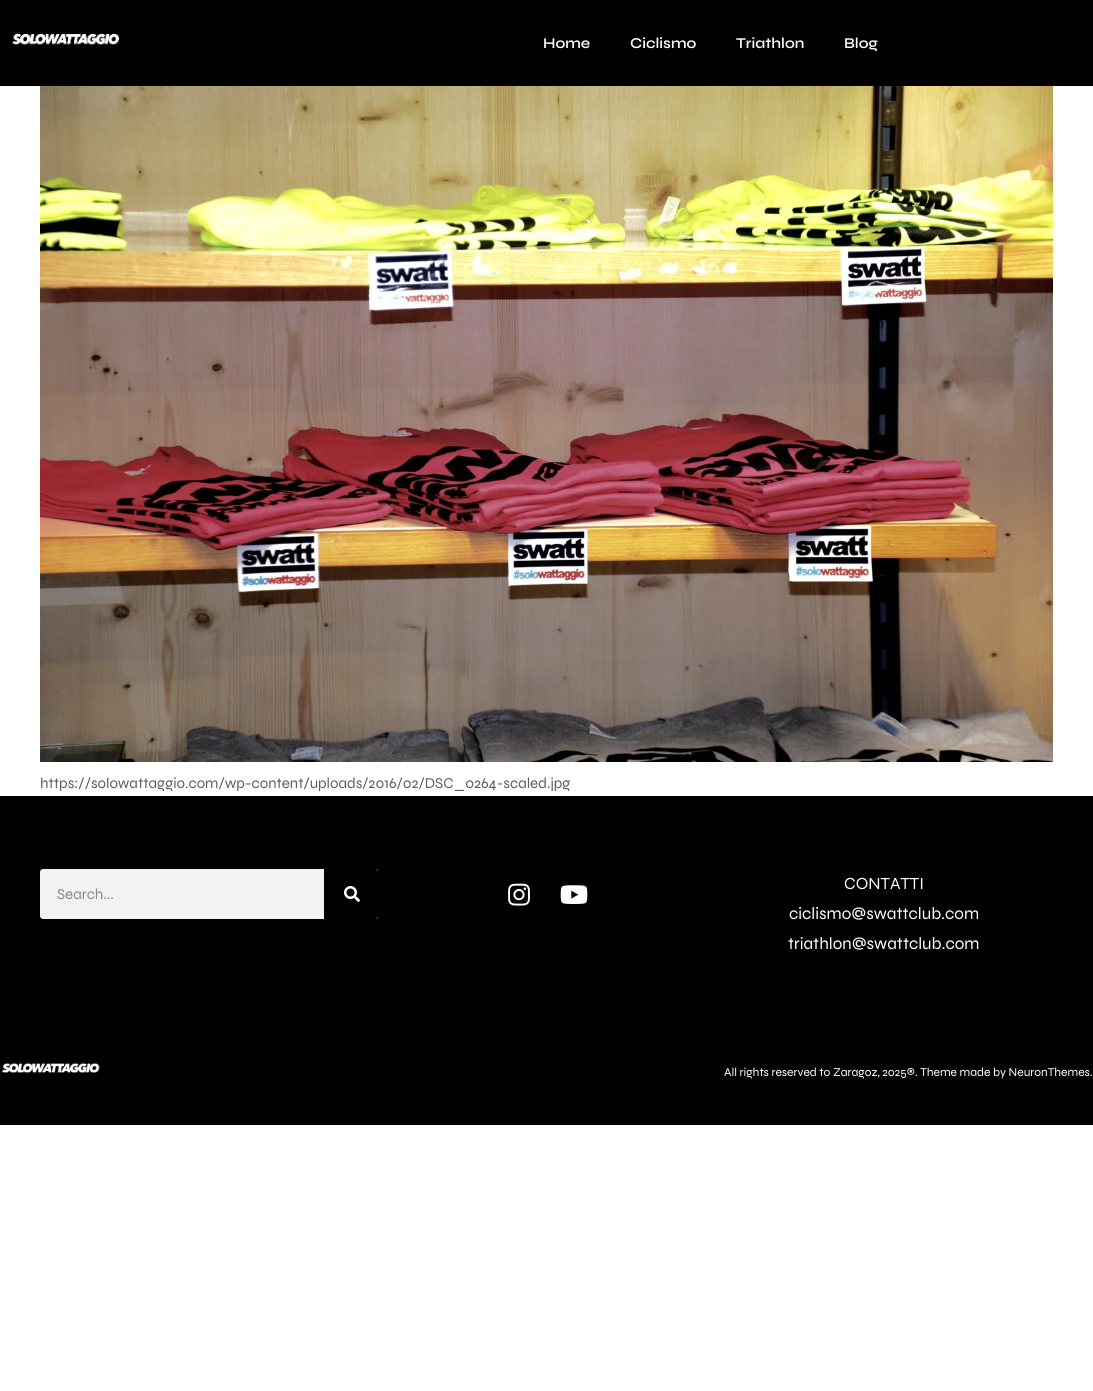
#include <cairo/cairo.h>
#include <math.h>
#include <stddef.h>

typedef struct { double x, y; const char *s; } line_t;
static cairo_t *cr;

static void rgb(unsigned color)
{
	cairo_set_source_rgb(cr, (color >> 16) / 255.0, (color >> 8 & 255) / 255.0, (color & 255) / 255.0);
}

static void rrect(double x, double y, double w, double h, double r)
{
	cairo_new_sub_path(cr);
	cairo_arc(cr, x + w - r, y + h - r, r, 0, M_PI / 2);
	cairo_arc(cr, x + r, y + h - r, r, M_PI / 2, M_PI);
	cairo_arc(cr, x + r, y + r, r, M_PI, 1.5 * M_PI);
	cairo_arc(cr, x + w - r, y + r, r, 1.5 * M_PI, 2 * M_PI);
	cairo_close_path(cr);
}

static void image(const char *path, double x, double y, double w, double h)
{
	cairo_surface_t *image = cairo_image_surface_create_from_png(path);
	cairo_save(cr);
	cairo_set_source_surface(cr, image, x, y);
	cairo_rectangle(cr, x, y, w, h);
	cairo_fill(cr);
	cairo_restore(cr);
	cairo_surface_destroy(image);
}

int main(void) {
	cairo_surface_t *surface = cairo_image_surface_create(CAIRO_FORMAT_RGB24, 1093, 1391);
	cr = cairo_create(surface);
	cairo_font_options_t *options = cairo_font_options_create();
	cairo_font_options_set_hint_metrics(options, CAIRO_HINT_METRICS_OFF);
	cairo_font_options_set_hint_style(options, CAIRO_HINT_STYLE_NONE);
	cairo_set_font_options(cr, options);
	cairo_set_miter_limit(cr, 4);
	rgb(0xffffff);
	cairo_paint(cr);
	rgb(0x000000);
	cairo_rectangle(cr, 0, 0, 1093, 86);
	cairo_fill(cr);
	image("img/1.png", 12, 33, 107, 12);
	image("img/2.png", 40, 86, 1013, 676);
	cairo_rectangle(cr, 0, 796, 1093, 329);
	cairo_fill(cr);
	rgb(0xf1f2f3);
	rrect(40, 869, 338, 50, 3);
	cairo_fill(cr);
	rgb(0x000000);
	cairo_new_path(cr);
	cairo_move_to(cr, 324, 869);
	cairo_line_to(cr, 375, 869);
	cairo_curve_to(cr, 376.5, 869, 378, 870.5, 378, 872);
	cairo_line_to(cr, 378, 916);
	cairo_curve_to(cr, 378, 917.5, 376.5, 919, 375, 919);
	cairo_line_to(cr, 324, 919);
	cairo_close_path(cr);
	cairo_fill(cr);
	image("img/3.png", 344, 886, 16, 16);
	image("img/4.png", 508, 883, 22, 23);
	image("img/5.png", 560, 885, 28, 19);
	image("img/6.png", 1, 1063, 99, 10);
	cairo_select_font_face(cr, "Syne SemiBold", CAIRO_FONT_SLANT_NORMAL, CAIRO_FONT_WEIGHT_NORMAL);
	cairo_set_font_size(cr, 15);
	rgb(0xffffff);
	{
		static const line_t items[] = {
			{543, 48, "Home"},
			{630, 48, "Ciclismo"},
			{736, 48, "Triathlon"},
			{844, 48, "Blog"},
		};
		for (size_t i = 0; i < sizeof items / sizeof *items; i++) {
			cairo_move_to(cr, items[i].x, items[i].y);
			cairo_show_text(cr, items[i].s);
		}
	}
	cairo_select_font_face(cr, "Syne", CAIRO_FONT_SLANT_NORMAL, CAIRO_FONT_WEIGHT_NORMAL);
	rgb(0x5e5e5e);
	cairo_move_to(cr, 40, 788);
	cairo_show_text(cr, "https://solowattaggio.com/wp-content/uploads/2016/02/DSC_0264-scaled.jpg");
	rgb(0x868a8e);
	cairo_move_to(cr, 57, 899);
	cairo_show_text(cr, "Search...");
	cairo_set_font_size(cr, 17);
	rgb(0xffffff);
	{
		static const line_t items[] = {
			{844, 889, "CONTATTI"},
			{789, 919, "ciclismo@swattclub.com"},
			{788, 949, "triathlon@swattclub.com"},
		};
		for (size_t i = 0; i < sizeof items / sizeof *items; i++) {
			cairo_move_to(cr, items[i].x, items[i].y);
			cairo_show_text(cr, items[i].s);
		}
	}
	cairo_set_font_size(cr, 12);
	cairo_move_to(cr, 724, 1076);
	cairo_show_text(cr, "All rights reserved to Zaragoz, 2025®. Theme made by NeuronThemes.");
	cairo_surface_write_to_png(surface, "page.png");
	cairo_font_options_destroy(options);
	cairo_destroy(cr);
	cairo_surface_destroy(surface);
	return 0;
}
